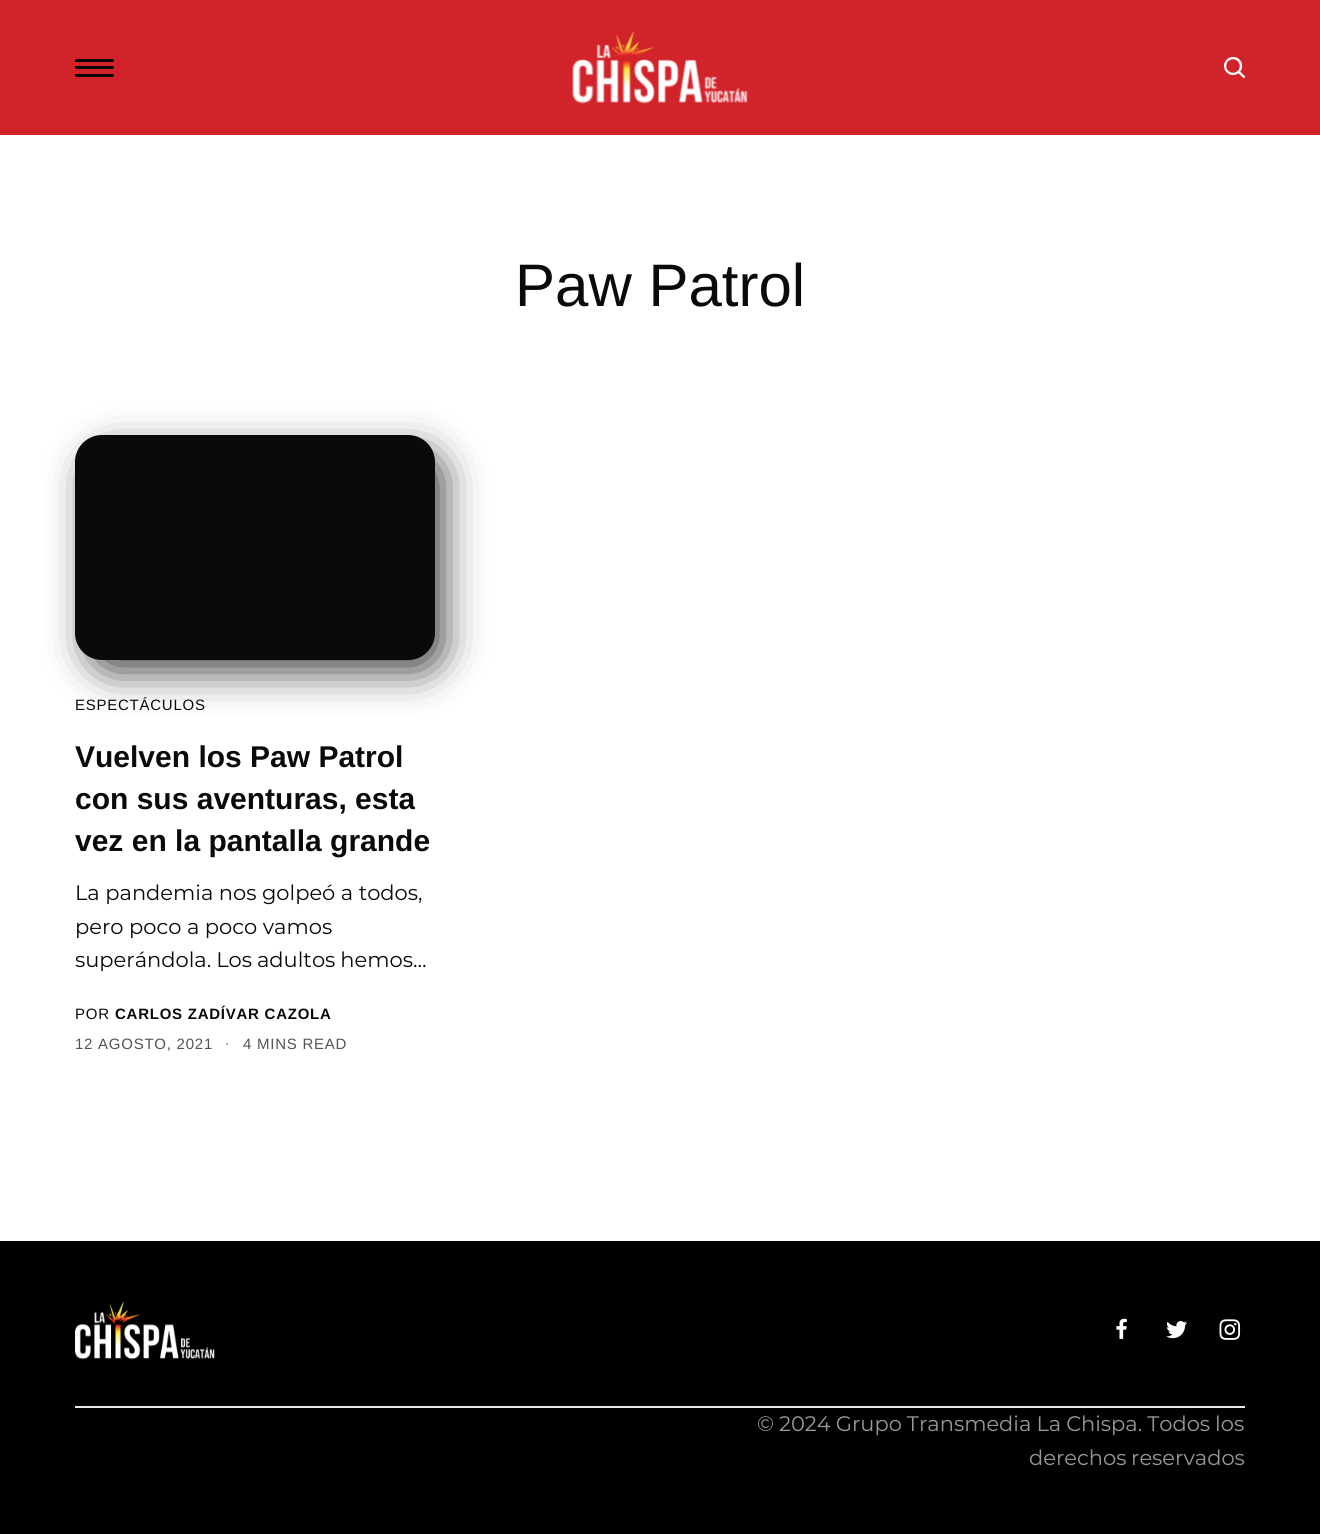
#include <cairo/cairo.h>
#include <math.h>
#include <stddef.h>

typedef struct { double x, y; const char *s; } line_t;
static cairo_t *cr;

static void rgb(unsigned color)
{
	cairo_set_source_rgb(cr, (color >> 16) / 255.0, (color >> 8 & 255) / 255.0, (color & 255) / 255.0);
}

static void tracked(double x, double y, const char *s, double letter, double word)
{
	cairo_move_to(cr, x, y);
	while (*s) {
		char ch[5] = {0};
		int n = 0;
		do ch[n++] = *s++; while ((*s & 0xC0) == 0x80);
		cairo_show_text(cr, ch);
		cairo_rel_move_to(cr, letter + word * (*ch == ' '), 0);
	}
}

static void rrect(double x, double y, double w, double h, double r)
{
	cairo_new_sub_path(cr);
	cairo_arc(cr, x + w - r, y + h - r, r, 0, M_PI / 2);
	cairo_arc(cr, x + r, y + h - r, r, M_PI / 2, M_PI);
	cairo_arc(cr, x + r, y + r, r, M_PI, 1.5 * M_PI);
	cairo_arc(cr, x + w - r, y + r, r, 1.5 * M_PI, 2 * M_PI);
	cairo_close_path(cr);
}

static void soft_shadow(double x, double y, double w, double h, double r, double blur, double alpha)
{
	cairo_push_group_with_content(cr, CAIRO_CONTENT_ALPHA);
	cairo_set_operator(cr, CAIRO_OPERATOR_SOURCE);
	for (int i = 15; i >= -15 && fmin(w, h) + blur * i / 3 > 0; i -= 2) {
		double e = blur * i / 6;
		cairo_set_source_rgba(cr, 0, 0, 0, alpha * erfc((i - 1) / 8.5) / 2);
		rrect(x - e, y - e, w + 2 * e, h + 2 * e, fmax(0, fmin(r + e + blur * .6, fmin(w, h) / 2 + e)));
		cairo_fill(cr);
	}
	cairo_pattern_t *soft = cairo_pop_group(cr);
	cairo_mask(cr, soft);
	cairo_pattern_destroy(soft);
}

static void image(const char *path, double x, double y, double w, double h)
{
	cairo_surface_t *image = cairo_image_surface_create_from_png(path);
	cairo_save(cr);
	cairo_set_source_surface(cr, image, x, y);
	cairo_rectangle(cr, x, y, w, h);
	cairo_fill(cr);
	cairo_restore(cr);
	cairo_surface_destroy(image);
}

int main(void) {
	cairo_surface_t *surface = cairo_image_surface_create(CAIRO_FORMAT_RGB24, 1320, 1534);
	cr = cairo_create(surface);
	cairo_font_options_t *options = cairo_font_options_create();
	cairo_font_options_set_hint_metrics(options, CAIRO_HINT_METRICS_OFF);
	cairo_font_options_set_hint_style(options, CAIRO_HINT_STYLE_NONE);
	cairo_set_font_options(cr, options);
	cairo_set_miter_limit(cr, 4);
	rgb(0xffffff);
	cairo_paint(cr);
	rgb(0xd1232a);
	cairo_rectangle(cr, 0, 0, 1320, 135);
	cairo_fill(cr);
	rgb(0x080808);
	rrect(75, 59, 39, 3, 1.5);
	cairo_fill(cr);
	rrect(75, 66, 39, 3, 1.5);
	cairo_fill(cr);
	rrect(75, 74, 39, 3, 1.5);
	cairo_fill(cr);
	image("img/1.png", 572, 31, 176, 73);
	image("img/2.png", 1224, 57, 21, 21);
	rgb(0x000000);
	soft_shadow(89, 452, 354, 219, 24, 20, 0.75);
	rgb(0x0a0a0a);
	rrect(75, 435, 360, 225, 27);
	cairo_fill(cr);
	rgb(0x000000);
	cairo_rectangle(cr, 0, 1241, 1320, 293);
	cairo_fill(cr);
	image("img/3.png", 75, 1301, 140, 59);
	image("img/4.png", 1116, 1318, 11, 21);
	image("img/5.png", 1166, 1321, 21, 18);
	image("img/6.png", 1219, 1319, 22, 21);
	rgb(0xe9e9e9);
	cairo_rectangle(cr, 75, 1406, 1170, 2);
	cairo_fill(cr);
	cairo_select_font_face(cr, "Liberation Sans", CAIRO_FONT_SLANT_NORMAL, CAIRO_FONT_WEIGHT_NORMAL);
	cairo_set_font_size(cr, 60);
	rgb(0x0a0a0a);
	cairo_move_to(cr, 515, 306);
	cairo_show_text(cr, "Paw Patrol");
	cairo_set_font_size(cr, 15);
	tracked(75, 710, "ESPECTÁCULOS", 0.75, 0);
	cairo_select_font_face(cr, "Liberation Sans", CAIRO_FONT_SLANT_NORMAL, CAIRO_FONT_WEIGHT_BOLD);
	cairo_set_font_size(cr, 30);
	{
		static const line_t items[] = {
			{75, 767, "Vuelven los Paw Patrol"},
			{75, 809, "con sus aventuras, esta"},
			{75, 851, "vez en la pantalla grande"},
		};
		for (size_t i = 0; i < sizeof items / sizeof *items; i++) {
			cairo_move_to(cr, items[i].x, items[i].y);
			cairo_show_text(cr, items[i].s);
		}
	}
	cairo_select_font_face(cr, "Montserrat", CAIRO_FONT_SLANT_NORMAL, CAIRO_FONT_WEIGHT_NORMAL);
	cairo_set_font_size(cr, 21);
	cairo_move_to(cr, 75, 900);
	cairo_show_text(cr, "La pandemia nos golpeó a todos,");
	cairo_move_to(cr, 75, 934);
	cairo_show_text(cr, "pero poco a poco vamos");
	tracked(75, 967, "superándola. Los adultos hemos…", 0, -0.5);
	cairo_select_font_face(cr, "Liberation Sans", CAIRO_FONT_SLANT_NORMAL, CAIRO_FONT_WEIGHT_NORMAL);
	cairo_set_font_size(cr, 15);
	tracked(75, 1019, "POR", 0.75, 0);
	cairo_select_font_face(cr, "Liberation Sans", CAIRO_FONT_SLANT_NORMAL, CAIRO_FONT_WEIGHT_BOLD);
	tracked(115, 1019, "CARLOS ZADÍVAR CAZOLA", 0.75, 0);
	cairo_select_font_face(cr, "Liberation Sans", CAIRO_FONT_SLANT_NORMAL, CAIRO_FONT_WEIGHT_NORMAL);
	rgb(0x545454);
	tracked(75, 1049, "12 AGOSTO, 2021", 0.75, 0);
	cairo_select_font_face(cr, "Liberation Sans", CAIRO_FONT_SLANT_NORMAL, CAIRO_FONT_WEIGHT_BOLD);
	rgb(0xb5b5b5);
	tracked(225, 1049, "·", 0.75, 0);
	cairo_select_font_face(cr, "Liberation Sans", CAIRO_FONT_SLANT_NORMAL, CAIRO_FONT_WEIGHT_NORMAL);
	rgb(0x545454);
	tracked(243, 1049, "4 MINS READ", 0.75, 0);
	cairo_select_font_face(cr, "Montserrat", CAIRO_FONT_SLANT_NORMAL, CAIRO_FONT_WEIGHT_NORMAL);
	cairo_set_font_size(cr, 21);
	rgb(0x999999);
	tracked(757, 1431, "© 2024 Grupo Transmedia La Chispa. Todos los", 0, -0.5);
	tracked(1029, 1465, "derechos reservados", 0, -1);
	cairo_surface_write_to_png(surface, "page.png");
	cairo_font_options_destroy(options);
	cairo_destroy(cr);
	cairo_surface_destroy(surface);
	return 0;
}
